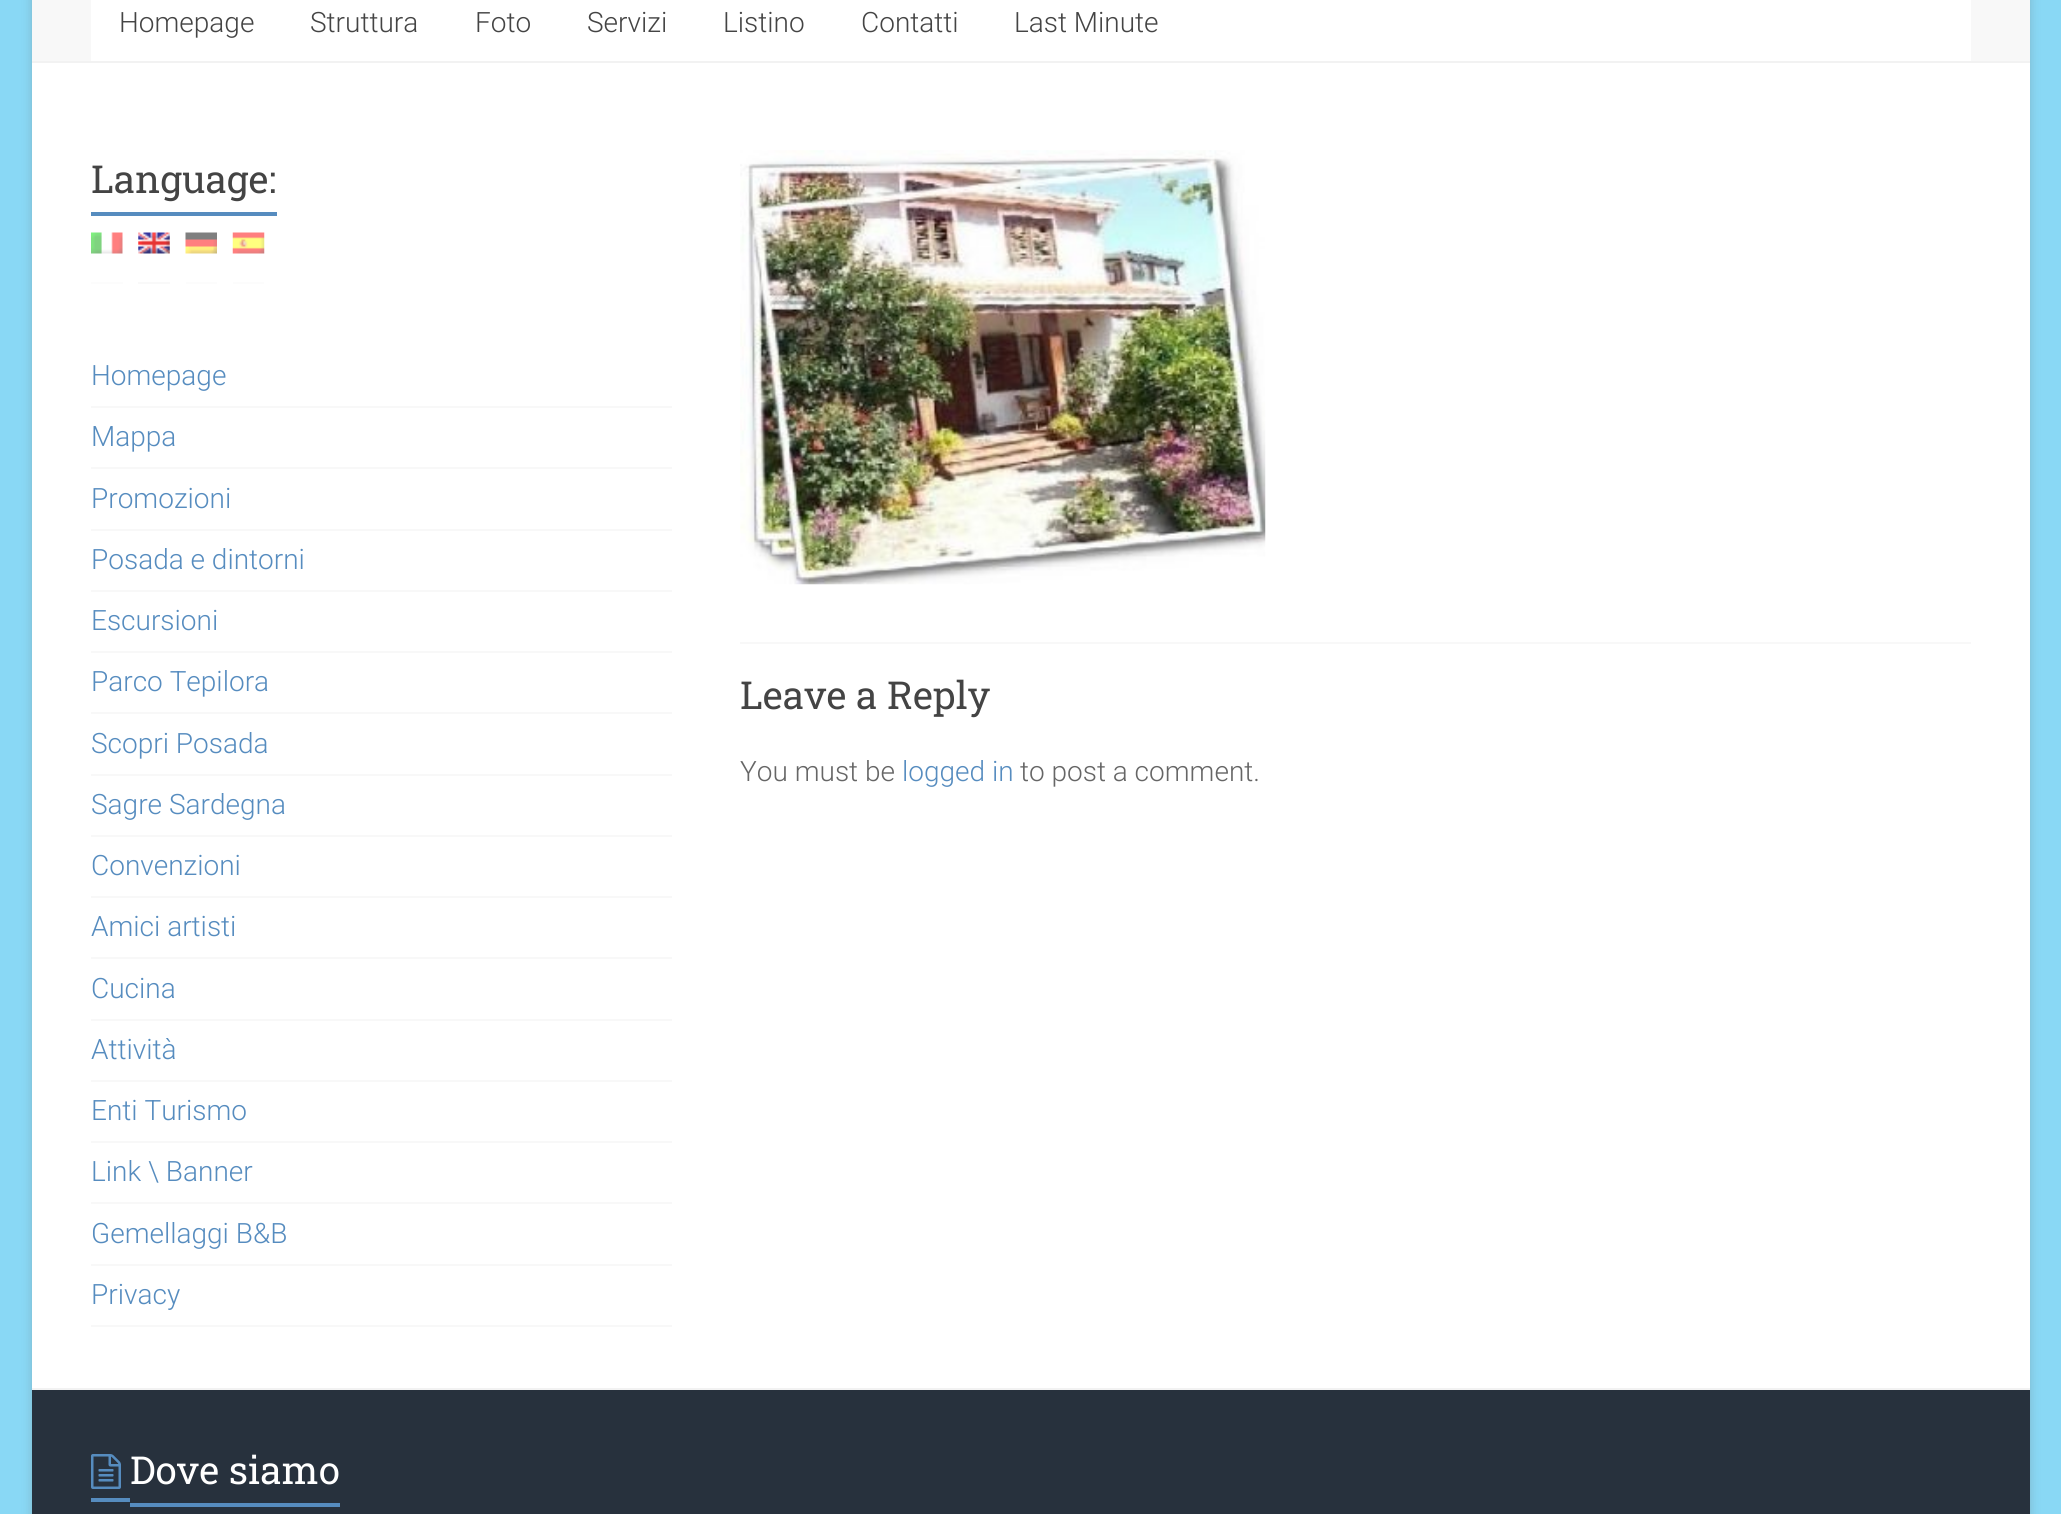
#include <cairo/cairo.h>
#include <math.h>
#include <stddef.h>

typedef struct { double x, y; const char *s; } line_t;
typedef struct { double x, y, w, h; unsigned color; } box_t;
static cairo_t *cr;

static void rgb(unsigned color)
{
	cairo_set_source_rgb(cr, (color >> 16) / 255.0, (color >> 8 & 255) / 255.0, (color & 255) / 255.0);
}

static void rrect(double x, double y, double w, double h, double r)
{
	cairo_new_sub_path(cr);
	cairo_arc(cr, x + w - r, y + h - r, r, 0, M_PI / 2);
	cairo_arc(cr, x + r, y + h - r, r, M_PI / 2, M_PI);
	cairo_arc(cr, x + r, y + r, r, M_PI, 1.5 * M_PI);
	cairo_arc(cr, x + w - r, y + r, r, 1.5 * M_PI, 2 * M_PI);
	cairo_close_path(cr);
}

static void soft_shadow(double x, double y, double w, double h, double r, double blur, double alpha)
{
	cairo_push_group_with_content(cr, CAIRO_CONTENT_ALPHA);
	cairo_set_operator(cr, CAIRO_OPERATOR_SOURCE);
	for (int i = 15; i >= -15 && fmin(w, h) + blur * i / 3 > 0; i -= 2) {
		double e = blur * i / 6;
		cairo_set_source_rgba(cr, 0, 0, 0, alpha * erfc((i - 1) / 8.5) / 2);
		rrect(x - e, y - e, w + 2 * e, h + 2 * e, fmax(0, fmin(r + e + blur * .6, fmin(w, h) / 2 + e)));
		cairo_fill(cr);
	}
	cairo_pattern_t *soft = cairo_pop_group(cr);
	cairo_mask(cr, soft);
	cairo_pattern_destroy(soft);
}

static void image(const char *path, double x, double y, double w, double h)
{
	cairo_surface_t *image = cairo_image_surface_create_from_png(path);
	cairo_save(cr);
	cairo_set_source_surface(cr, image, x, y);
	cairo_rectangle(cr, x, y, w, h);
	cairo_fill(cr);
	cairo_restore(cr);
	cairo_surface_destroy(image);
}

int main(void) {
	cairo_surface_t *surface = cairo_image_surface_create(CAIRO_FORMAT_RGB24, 2061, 1514);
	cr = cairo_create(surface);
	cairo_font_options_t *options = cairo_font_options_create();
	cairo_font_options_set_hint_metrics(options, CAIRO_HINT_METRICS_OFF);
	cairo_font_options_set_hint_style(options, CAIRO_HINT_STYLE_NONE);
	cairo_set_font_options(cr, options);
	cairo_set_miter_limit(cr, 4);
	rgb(0x89d8f5);
	cairo_paint(cr);
	rgb(0x646464);
	soft_shadow(32, -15, 1998, 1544, 0, 5, 0.3);
	{
		static const box_t items[] = {
			{32, 63, 1998, 1325, 0xffffff},
			{32, 0, 1998, 61, 0xf8f8f8},
			{32, 61, 1998, 2, 0xf2f2f2},
			{91, 0, 1880, 61, 0xffffff},
			{91, 212, 186, 4, 0x568cbf},
		};
		for (size_t i = 0; i < sizeof items / sizeof *items; i++) {
			rgb(items[i].color);
			cairo_rectangle(cr, items[i].x, items[i].y, items[i].w, items[i].h);
			cairo_fill(cr);
		}
	}
	image("img/1.png", 91, 232, 32, 22);
	image("img/2.png", 138, 232, 32, 22);
	image("img/3.png", 185, 232, 32, 22);
	image("img/4.png", 232, 232, 33, 22);
	{
		static const box_t items[] = {
			{91, 282, 32, 2, 0xfcfcfc},
			{138, 282, 32, 2, 0xf9f9f9},
			{186, 282, 31, 2, 0xfcfcfc},
			{233, 282, 31, 2, 0xfcfcfc},
			{91, 406, 581, 2, 0xf8f8f8},
			{91, 467, 581, 2, 0xf8f8f8},
			{91, 529, 581, 2, 0xf8f8f8},
			{91, 590, 581, 2, 0xf8f8f8},
			{91, 651, 581, 2, 0xf8f8f8},
			{91, 712, 581, 2, 0xf8f8f8},
			{91, 774, 581, 2, 0xf8f8f8},
			{91, 835, 581, 2, 0xf8f8f8},
			{91, 896, 581, 2, 0xf8f8f8},
			{91, 957, 581, 2, 0xf8f8f8},
			{91, 1019, 581, 2, 0xf8f8f8},
			{91, 1080, 581, 2, 0xf8f8f8},
			{91, 1141, 581, 2, 0xf8f8f8},
			{91, 1202, 581, 2, 0xf8f8f8},
			{91, 1264, 581, 2, 0xf8f8f8},
			{91, 1325, 581, 2, 0xf8f8f8},
		};
		for (size_t i = 0; i < sizeof items / sizeof *items; i++) {
			rgb(items[i].color);
			cairo_rectangle(cr, items[i].x, items[i].y, items[i].w, items[i].h);
			cairo_fill(cr);
		}
	}
	image("img/5.png", 740, 150, 526, 435);
	{
		static const box_t items[] = {
			{740, 642, 1231, 2, 0xf8f8f8},
			{32, 1390, 1998, 124, 0x27313d},
			{32, 1388, 1998, 2, 0xf2f2f2},
		};
		for (size_t i = 0; i < sizeof items / sizeof *items; i++) {
			rgb(items[i].color);
			cairo_rectangle(cr, items[i].x, items[i].y, items[i].w, items[i].h);
			cairo_fill(cr);
		}
	}
	image("img/6.png", 91, 1454, 30, 35);
	rgb(0x568cbf);
	cairo_rectangle(cr, 91, 1498, 39, 4);
	cairo_fill(cr);
	cairo_rectangle(cr, 130, 1503, 210, 4);
	cairo_fill(cr);
	cairo_select_font_face(cr, "Roboto Light", CAIRO_FONT_SLANT_NORMAL, CAIRO_FONT_WEIGHT_NORMAL);
	cairo_set_font_size(cr, 28);
	rgb(0x444444);
	{
		static const line_t items[] = {
			{119, 32, "Homepage"},
			{310, 32, "Struttura"},
			{475, 32, "Foto"},
			{587, 32, "Servizi"},
			{723, 32, "Listino"},
			{861, 32, "Contatti"},
			{1014, 32, "Last Minute"},
		};
		for (size_t i = 0; i < sizeof items / sizeof *items; i++) {
			cairo_move_to(cr, items[i].x, items[i].y);
			cairo_show_text(cr, items[i].s);
		}
	}
	cairo_select_font_face(cr, "Roboto Slab", CAIRO_FONT_SLANT_NORMAL, CAIRO_FONT_WEIGHT_NORMAL);
	cairo_set_font_size(cr, 38.5);
	cairo_move_to(cr, 91, 193);
	cairo_show_text(cr, "Language:");
	cairo_select_font_face(cr, "Roboto Light", CAIRO_FONT_SLANT_NORMAL, CAIRO_FONT_WEIGHT_NORMAL);
	cairo_set_font_size(cr, 28);
	rgb(0x568cbf);
	{
		static const line_t items[] = {
			{91, 385, "Homepage"},
			{91, 446, "Mappa"},
			{91, 508, "Promozioni"},
			{91, 569, "Posada e dintorni"},
			{91, 630, "Escursioni"},
			{91, 691, "Parco Tepilora"},
			{91, 753, "Scopri Posada"},
			{91, 814, "Sagre Sardegna"},
			{91, 875, "Convenzioni"},
			{91, 936, "Amici artisti"},
			{91, 998, "Cucina"},
			{91, 1059, "Attività"},
			{91, 1120, "Enti Turismo"},
			{91, 1181, "Link \\ Banner"},
			{91, 1243, "Gemellaggi B&B"},
			{91, 1304, "Privacy"},
		};
		for (size_t i = 0; i < sizeof items / sizeof *items; i++) {
			cairo_move_to(cr, items[i].x, items[i].y);
			cairo_show_text(cr, items[i].s);
		}
	}
	cairo_select_font_face(cr, "Roboto Slab", CAIRO_FONT_SLANT_NORMAL, CAIRO_FONT_WEIGHT_NORMAL);
	cairo_set_font_size(cr, 38.5);
	rgb(0x444444);
	cairo_move_to(cr, 740, 709);
	cairo_show_text(cr, "Leave a Reply");
	cairo_select_font_face(cr, "Roboto Light", CAIRO_FONT_SLANT_NORMAL, CAIRO_FONT_WEIGHT_NORMAL);
	cairo_set_font_size(cr, 28);
	rgb(0x666666);
	cairo_move_to(cr, 740, 781);
	cairo_show_text(cr, "You must be");
	rgb(0x568cbf);
	cairo_move_to(cr, 902, 781);
	cairo_show_text(cr, "logged in");
	rgb(0x666666);
	cairo_move_to(cr, 1020, 781);
	cairo_show_text(cr, "to post a comment.");
	cairo_select_font_face(cr, "Roboto Slab", CAIRO_FONT_SLANT_NORMAL, CAIRO_FONT_WEIGHT_NORMAL);
	cairo_set_font_size(cr, 38.5);
	rgb(0xffffff);
	cairo_move_to(cr, 130, 1484);
	cairo_show_text(cr, "Dove siamo");
	cairo_surface_write_to_png(surface, "page.png");
	cairo_font_options_destroy(options);
	cairo_destroy(cr);
	cairo_surface_destroy(surface);
	return 0;
}
